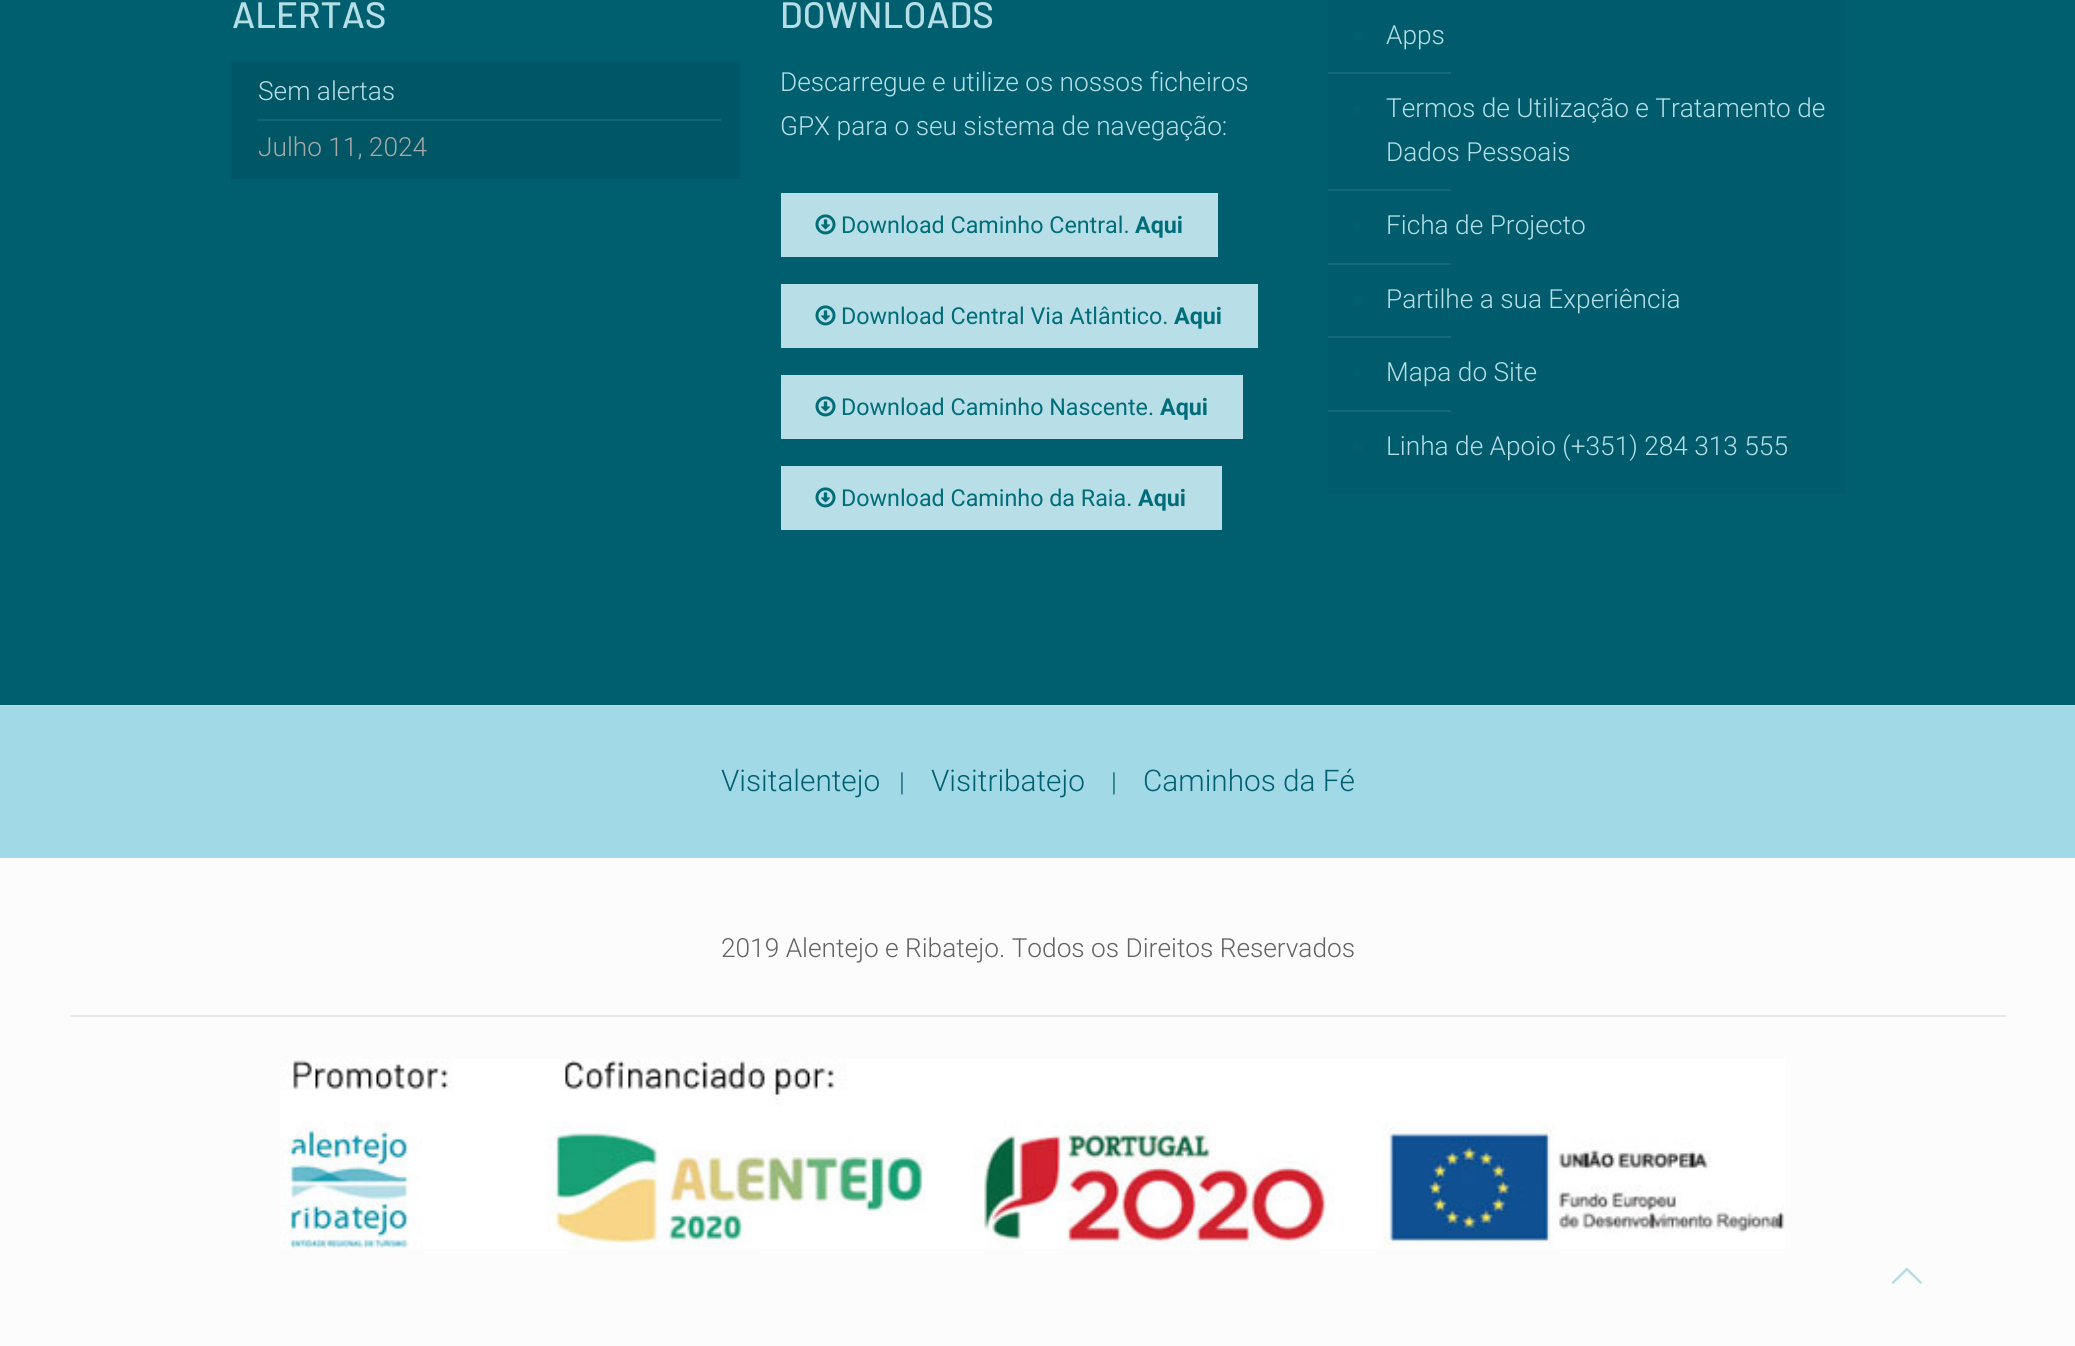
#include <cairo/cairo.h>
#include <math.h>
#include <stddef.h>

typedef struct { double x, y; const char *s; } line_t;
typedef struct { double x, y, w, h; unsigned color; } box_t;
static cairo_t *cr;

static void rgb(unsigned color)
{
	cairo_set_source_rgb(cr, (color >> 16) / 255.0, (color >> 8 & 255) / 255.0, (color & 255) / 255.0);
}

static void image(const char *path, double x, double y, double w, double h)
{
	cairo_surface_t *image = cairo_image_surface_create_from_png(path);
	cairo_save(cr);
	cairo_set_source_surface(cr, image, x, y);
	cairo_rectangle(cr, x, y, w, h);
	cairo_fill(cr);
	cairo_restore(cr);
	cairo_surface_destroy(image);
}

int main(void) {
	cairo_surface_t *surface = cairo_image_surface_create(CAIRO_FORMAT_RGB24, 2075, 1346);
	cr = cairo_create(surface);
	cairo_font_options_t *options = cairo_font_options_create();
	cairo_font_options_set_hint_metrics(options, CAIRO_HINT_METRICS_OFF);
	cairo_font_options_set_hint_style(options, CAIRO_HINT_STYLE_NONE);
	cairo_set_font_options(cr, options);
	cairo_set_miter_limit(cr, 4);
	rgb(0xfcfcfc);
	cairo_paint(cr);
	{
		static const box_t items[] = {
			{0, 0, 2075, 705, 0x005f6f},
			{231, 61, 509, 118, 0x005664},
			{257, 119, 464, 2, 0x146470},
			{781, 193, 437, 64, 0xb8dfe7},
		};
		for (size_t i = 0; i < sizeof items / sizeof *items; i++) {
			rgb(items[i].color);
			cairo_rectangle(cr, items[i].x, items[i].y, items[i].w, items[i].h);
			cairo_fill(cr);
		}
	}
	image("img/1.png", 815, 214, 21, 21);
	cairo_rectangle(cr, 781, 284, 477, 64);
	cairo_fill(cr);
	image("img/1.png", 815, 305, 21, 21);
	cairo_rectangle(cr, 781, 375, 462, 64);
	cairo_fill(cr);
	image("img/1.png", 815, 396, 21, 21);
	cairo_rectangle(cr, 781, 466, 441, 64);
	cairo_fill(cr);
	image("img/1.png", 815, 487, 21, 21);
	{
		static const box_t items[] = {
			{1328, 0, 517, 494, 0x005c6c},
			{1353, 32, 9, 8, 0x005f6f},
			{1328, 72, 123, 2, 0x146978},
			{1353, 105, 9, 9, 0x005f6f},
			{1328, 189, 123, 2, 0x146978},
			{1353, 222, 9, 9, 0x005f6f},
			{1328, 263, 123, 2, 0x146978},
			{1353, 296, 9, 9, 0x005f6f},
			{1328, 336, 123, 2, 0x146978},
			{1353, 369, 9, 9, 0x005f6f},
			{1328, 410, 123, 2, 0x146978},
			{1353, 443, 9, 9, 0x005f6f},
			{0, 707, 2075, 151, 0xa2d9e7},
			{0, 705, 2075, 2, 0xabdde9},
			{70, 1015, 1936, 2, 0xe8e8e8},
		};
		for (size_t i = 0; i < sizeof items / sizeof *items; i++) {
			rgb(items[i].color);
			cairo_rectangle(cr, items[i].x, items[i].y, items[i].w, items[i].h);
			cairo_fill(cr);
		}
	}
	image("img/2.png", 280, 1059, 1505, 190);
	image("img/3.png", 1891, 1267, 31, 17);
	cairo_select_font_face(cr, "Barlow Medium", CAIRO_FONT_SLANT_NORMAL, CAIRO_FONT_WEIGHT_NORMAL);
	cairo_set_font_size(cr, 36.75);
	rgb(0xb6dee6);
	cairo_move_to(cr, 232, 28);
	cairo_show_text(cr, "ALERTAS");
	cairo_select_font_face(cr, "Roboto Light", CAIRO_FONT_SLANT_NORMAL, CAIRO_FONT_WEIGHT_NORMAL);
	cairo_set_font_size(cr, 26.25);
	cairo_move_to(cr, 258, 100);
	cairo_show_text(cr, "Sem alertas");
	rgb(0xa8a8a8);
	cairo_move_to(cr, 258, 156);
	cairo_show_text(cr, "Julho 11, 2024");
	cairo_select_font_face(cr, "Barlow Medium", CAIRO_FONT_SLANT_NORMAL, CAIRO_FONT_WEIGHT_NORMAL);
	cairo_set_font_size(cr, 36.75);
	rgb(0xb6dee6);
	cairo_move_to(cr, 780, 28);
	cairo_show_text(cr, "DOWNLOADS");
	cairo_select_font_face(cr, "Roboto Light", CAIRO_FONT_SLANT_NORMAL, CAIRO_FONT_WEIGHT_NORMAL);
	cairo_set_font_size(cr, 26.25);
	cairo_move_to(cr, 780, 91);
	cairo_show_text(cr, "Descarregue e utilize os nossos ficheiros");
	cairo_move_to(cr, 780, 135);
	cairo_show_text(cr, "GPX para o seu sistema de navegação:");
	cairo_select_font_face(cr, "Roboto", CAIRO_FONT_SLANT_NORMAL, CAIRO_FONT_WEIGHT_NORMAL);
	cairo_set_font_size(cr, 23.3);
	rgb(0x016d79);
	cairo_move_to(cr, 841, 233);
	cairo_show_text(cr, "Download Caminho Central.");
	cairo_select_font_face(cr, "Roboto", CAIRO_FONT_SLANT_NORMAL, CAIRO_FONT_WEIGHT_BOLD);
	cairo_move_to(cr, 1135, 233);
	cairo_show_text(cr, "Aqui");
	cairo_select_font_face(cr, "Roboto", CAIRO_FONT_SLANT_NORMAL, CAIRO_FONT_WEIGHT_NORMAL);
	cairo_move_to(cr, 841, 324);
	cairo_show_text(cr, "Download Central Via Atlântico.");
	cairo_select_font_face(cr, "Roboto", CAIRO_FONT_SLANT_NORMAL, CAIRO_FONT_WEIGHT_BOLD);
	cairo_move_to(cr, 1174, 324);
	cairo_show_text(cr, "Aqui");
	cairo_select_font_face(cr, "Roboto", CAIRO_FONT_SLANT_NORMAL, CAIRO_FONT_WEIGHT_NORMAL);
	cairo_move_to(cr, 841, 415);
	cairo_show_text(cr, "Download Caminho Nascente.");
	cairo_select_font_face(cr, "Roboto", CAIRO_FONT_SLANT_NORMAL, CAIRO_FONT_WEIGHT_BOLD);
	cairo_move_to(cr, 1160, 415);
	cairo_show_text(cr, "Aqui");
	cairo_select_font_face(cr, "Roboto", CAIRO_FONT_SLANT_NORMAL, CAIRO_FONT_WEIGHT_NORMAL);
	cairo_move_to(cr, 841, 506);
	cairo_show_text(cr, "Download Caminho da Raia.");
	cairo_select_font_face(cr, "Roboto", CAIRO_FONT_SLANT_NORMAL, CAIRO_FONT_WEIGHT_BOLD);
	cairo_move_to(cr, 1138, 506);
	cairo_show_text(cr, "Aqui");
	cairo_select_font_face(cr, "Roboto Light", CAIRO_FONT_SLANT_NORMAL, CAIRO_FONT_WEIGHT_NORMAL);
	cairo_set_font_size(cr, 26.25);
	rgb(0xb6dee6);
	{
		static const line_t items[] = {
			{1386, 44, "Apps"},
			{1386, 117, "Termos de Utilização e Tratamento de"},
			{1386, 161, "Dados Pessoais"},
			{1386, 234, "Ficha de Projecto"},
			{1386, 308, "Partilhe a sua Experiência"},
			{1386, 381, "Mapa do Site"},
			{1386, 455, "Linha de Apoio (+351) 284 313 555"},
		};
		for (size_t i = 0; i < sizeof items / sizeof *items; i++) {
			cairo_move_to(cr, items[i].x, items[i].y);
			cairo_show_text(cr, items[i].s);
		}
	}
	cairo_set_font_size(cr, 29.75);
	rgb(0x005f70);
	cairo_move_to(cr, 721, 791);
	cairo_show_text(cr, "Visitalentejo");
	cairo_set_font_size(cr, 26.25);
	cairo_move_to(cr, 899, 791);
	cairo_show_text(cr, "|");
	cairo_set_font_size(cr, 29.75);
	cairo_move_to(cr, 931, 791);
	cairo_show_text(cr, "Visitribatejo");
	cairo_set_font_size(cr, 26.25);
	cairo_move_to(cr, 1111, 791);
	cairo_show_text(cr, "|");
	cairo_set_font_size(cr, 29.75);
	cairo_move_to(cr, 1143, 791);
	cairo_show_text(cr, "Caminhos da Fé");
	cairo_set_font_size(cr, 26.25);
	rgb(0x626262);
	cairo_move_to(cr, 721, 957);
	cairo_show_text(cr, "2019 Alentejo e Ribatejo. Todos os Direitos Reservados");
	cairo_surface_write_to_png(surface, "page.png");
	cairo_font_options_destroy(options);
	cairo_destroy(cr);
	cairo_surface_destroy(surface);
	return 0;
}
